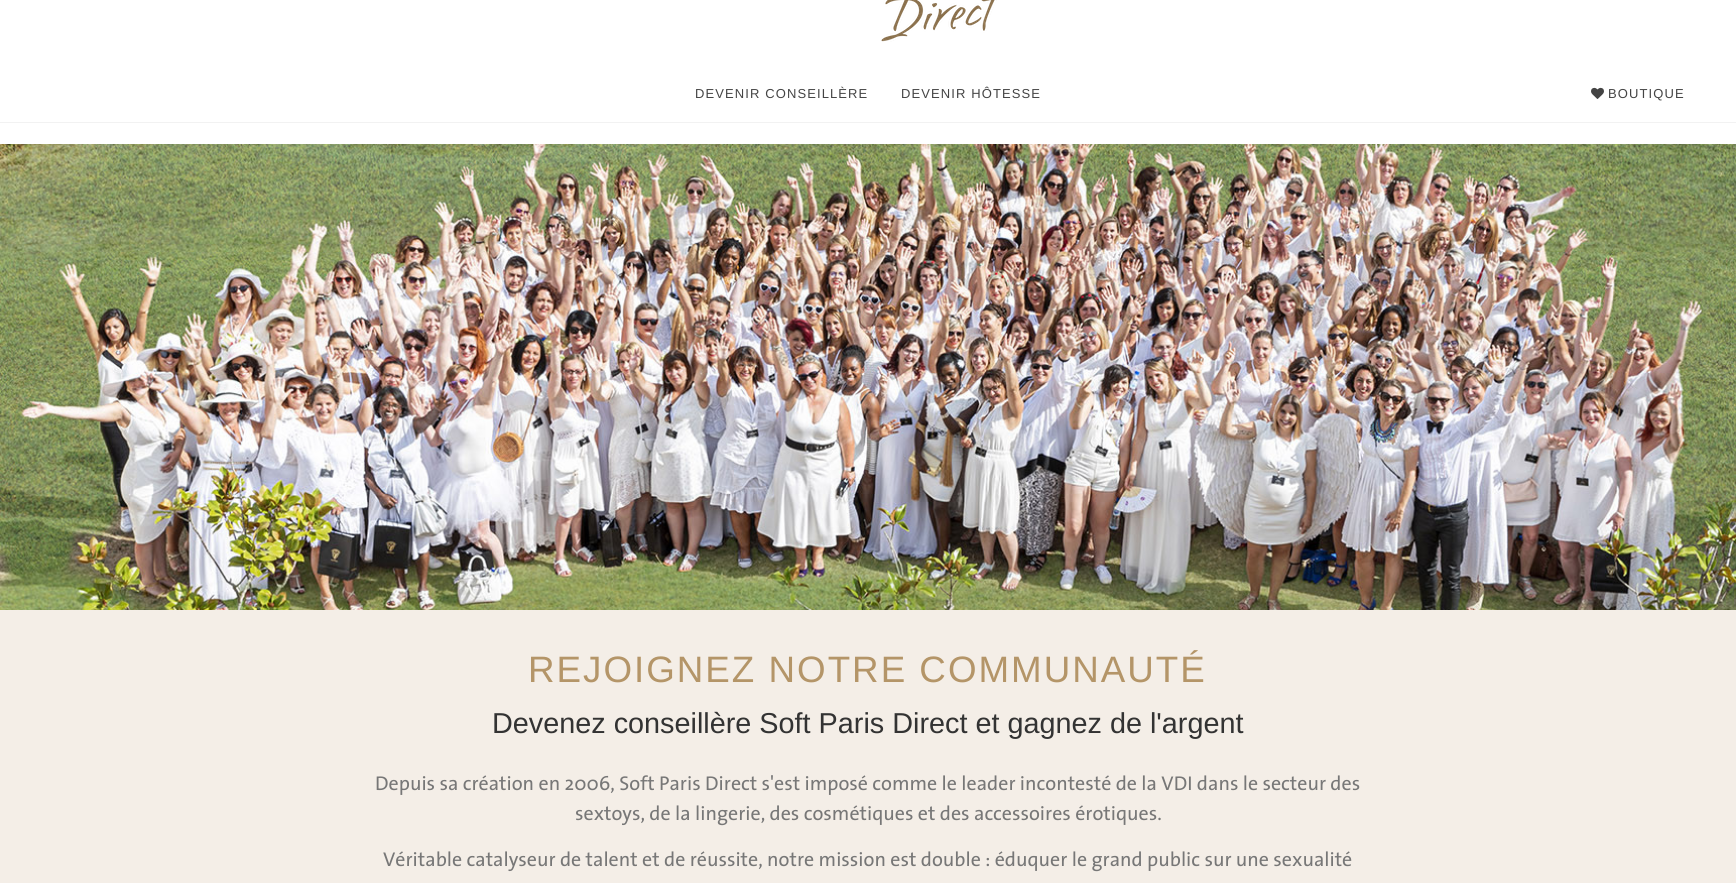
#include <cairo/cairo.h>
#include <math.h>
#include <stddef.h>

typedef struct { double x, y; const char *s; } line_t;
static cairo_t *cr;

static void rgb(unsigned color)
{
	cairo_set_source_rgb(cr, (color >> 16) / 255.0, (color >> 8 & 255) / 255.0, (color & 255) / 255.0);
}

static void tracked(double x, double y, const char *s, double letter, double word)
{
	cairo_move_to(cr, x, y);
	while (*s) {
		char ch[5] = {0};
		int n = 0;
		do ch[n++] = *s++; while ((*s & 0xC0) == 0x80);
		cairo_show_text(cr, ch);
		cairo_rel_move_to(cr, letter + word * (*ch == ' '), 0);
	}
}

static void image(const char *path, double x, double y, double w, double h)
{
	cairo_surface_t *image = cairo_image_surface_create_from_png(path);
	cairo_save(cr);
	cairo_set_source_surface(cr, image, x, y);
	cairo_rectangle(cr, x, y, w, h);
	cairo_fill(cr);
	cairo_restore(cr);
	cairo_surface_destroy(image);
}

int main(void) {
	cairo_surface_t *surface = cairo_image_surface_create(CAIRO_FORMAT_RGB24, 1736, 883);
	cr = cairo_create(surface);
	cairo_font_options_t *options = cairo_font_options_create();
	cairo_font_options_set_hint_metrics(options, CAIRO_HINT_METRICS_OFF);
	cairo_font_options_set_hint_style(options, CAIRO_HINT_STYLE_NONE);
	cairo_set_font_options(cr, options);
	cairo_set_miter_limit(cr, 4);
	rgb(0xffffff);
	cairo_paint(cr);
	image("img/1.png", 881, 0, 116, 42);
	image("img/2.png", 1591, 87, 13, 12);
	rgb(0xf2f2f2);
	cairo_rectangle(cr, 0, 122, 1736, 1);
	cairo_fill(cr);
	image("img/3.png", 0, 144, 1736, 466);
	rgb(0xf4eee7);
	cairo_rectangle(cr, 0, 610, 1736, 273);
	cairo_fill(cr);
	cairo_select_font_face(cr, "Liberation Sans", CAIRO_FONT_SLANT_NORMAL, CAIRO_FONT_WEIGHT_NORMAL);
	cairo_set_font_size(cr, 13);
	rgb(0x444444);
	{
		static const line_t items[] = {
			{695, 98, "DEVENIR CONSEILLÈRE"},
			{901, 98, "DEVENIR HÔTESSE"},
			{1608, 98, "BOUTIQUE"},
		};
		for (size_t i = 0; i < sizeof items / sizeof *items; i++) {
			tracked(items[i].x, items[i].y, items[i].s, 1.1, 0);
		}
	}
	cairo_set_font_size(cr, 36.75);
	rgb(0xb49568);
	tracked(528, 682, "REJOIGNEZ NOTRE COMMUNAUTÉ", 2, 0);
	cairo_set_font_size(cr, 28.8);
	rgb(0x333333);
	cairo_move_to(cr, 492, 733);
	cairo_show_text(cr, "Devenez conseillère Soft Paris Direct et gagnez de l'argent");
	cairo_select_font_face(cr, "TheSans", CAIRO_FONT_SLANT_NORMAL, CAIRO_FONT_WEIGHT_NORMAL);
	cairo_set_font_size(cr, 20);
	rgb(0x777777);
	{
		static const line_t items[] = {
			{375, 790, "Depuis sa création en 2006, Soft Paris Direct s'est imposé comme le leader incontesté de la VDI dans le secteur des"},
			{575, 820, "sextoys, de la lingerie, des cosmétiques et des accessoires érotiques."},
			{383, 866, "Véritable catalyseur de talent et de réussite, notre mission est double : éduquer le grand public sur une sexualité"},
		};
		for (size_t i = 0; i < sizeof items / sizeof *items; i++) {
			cairo_move_to(cr, items[i].x, items[i].y);
			cairo_show_text(cr, items[i].s);
		}
	}
	cairo_surface_write_to_png(surface, "page.png");
	cairo_font_options_destroy(options);
	cairo_destroy(cr);
	cairo_surface_destroy(surface);
	return 0;
}
